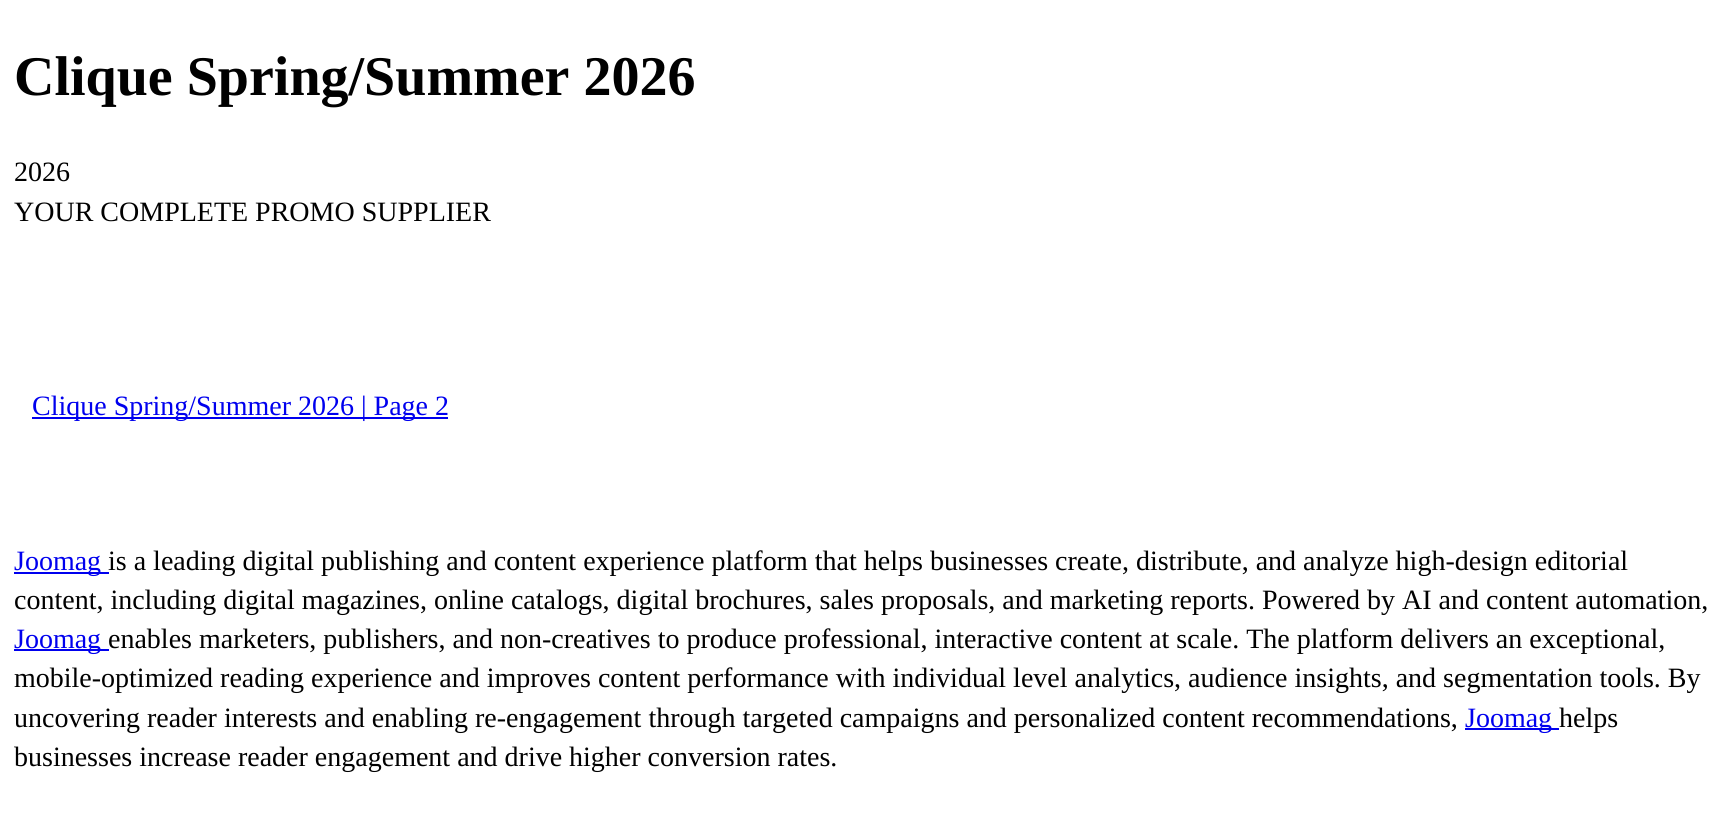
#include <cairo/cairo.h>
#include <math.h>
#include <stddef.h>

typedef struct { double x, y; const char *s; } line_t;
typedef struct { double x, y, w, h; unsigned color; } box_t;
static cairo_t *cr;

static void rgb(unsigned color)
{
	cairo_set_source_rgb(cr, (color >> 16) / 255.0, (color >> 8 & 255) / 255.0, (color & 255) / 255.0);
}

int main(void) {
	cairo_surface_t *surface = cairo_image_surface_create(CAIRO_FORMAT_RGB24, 1734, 832);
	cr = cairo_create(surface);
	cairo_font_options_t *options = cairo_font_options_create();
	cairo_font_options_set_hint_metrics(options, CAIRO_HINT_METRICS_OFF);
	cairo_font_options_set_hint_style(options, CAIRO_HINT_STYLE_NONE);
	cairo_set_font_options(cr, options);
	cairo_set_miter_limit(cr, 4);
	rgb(0xffffff);
	cairo_paint(cr);
	{
		static const box_t items[] = {
			{32, 417, 416, 2, 0x0000ee},
			{14, 572, 95, 2, 0x0000ee},
			{14, 649, 95, 2, 0x0000ee},
			{1465, 728, 94, 2, 0x0000ee},
		};
		for (size_t i = 0; i < sizeof items / sizeof *items; i++) {
			rgb(items[i].color);
			cairo_rectangle(cr, items[i].x, items[i].y, items[i].w, items[i].h);
			cairo_fill(cr);
		}
	}
	cairo_select_font_face(cr, "Liberation Serif", CAIRO_FONT_SLANT_NORMAL, CAIRO_FONT_WEIGHT_BOLD);
	cairo_set_font_size(cr, 56);
	rgb(0x000000);
	cairo_move_to(cr, 14, 95);
	cairo_show_text(cr, "Clique Spring/Summer 2026");
	cairo_select_font_face(cr, "Liberation Serif", CAIRO_FONT_SLANT_NORMAL, CAIRO_FONT_WEIGHT_NORMAL);
	cairo_set_font_size(cr, 28);
	cairo_move_to(cr, 14, 181);
	cairo_show_text(cr, "2026");
	cairo_move_to(cr, 14, 221);
	cairo_show_text(cr, "YOUR COMPLETE PROMO SUPPLIER");
	rgb(0x0000ee);
	cairo_move_to(cr, 32, 415);
	cairo_show_text(cr, "Clique Spring/Summer 2026 | Page 2");
	cairo_move_to(cr, 14, 570);
	cairo_show_text(cr, "Joomag");
	rgb(0x000000);
	cairo_move_to(cr, 108, 570);
	cairo_show_text(cr, "is a leading digital publishing and content experience platform that helps businesses create, distribute, and analyze high-design editorial");
	cairo_move_to(cr, 14, 609);
	cairo_show_text(cr, "content, including digital magazines, online catalogs, digital brochures, sales proposals, and marketing reports. Powered by AI and content automation,");
	rgb(0x0000ee);
	cairo_move_to(cr, 14, 648);
	cairo_show_text(cr, "Joomag");
	rgb(0x000000);
	{
		static const line_t items[] = {
			{108, 648, "enables marketers, publishers, and non-creatives to produce professional, interactive content at scale. The platform delivers an exceptional,"},
			{14, 687, "mobile-optimized reading experience and improves content performance with individual level analytics, audience insights, and segmentation tools. By"},
			{14, 727, "uncovering reader interests and enabling re-engagement through targeted campaigns and personalized content recommendations,"},
		};
		for (size_t i = 0; i < sizeof items / sizeof *items; i++) {
			cairo_move_to(cr, items[i].x, items[i].y);
			cairo_show_text(cr, items[i].s);
		}
	}
	rgb(0x0000ee);
	cairo_move_to(cr, 1465, 727);
	cairo_show_text(cr, "Joomag");
	rgb(0x000000);
	cairo_move_to(cr, 1559, 727);
	cairo_show_text(cr, "helps");
	cairo_move_to(cr, 14, 766);
	cairo_show_text(cr, "businesses increase reader engagement and drive higher conversion rates.");
	cairo_surface_write_to_png(surface, "page.png");
	cairo_font_options_destroy(options);
	cairo_destroy(cr);
	cairo_surface_destroy(surface);
	return 0;
}
